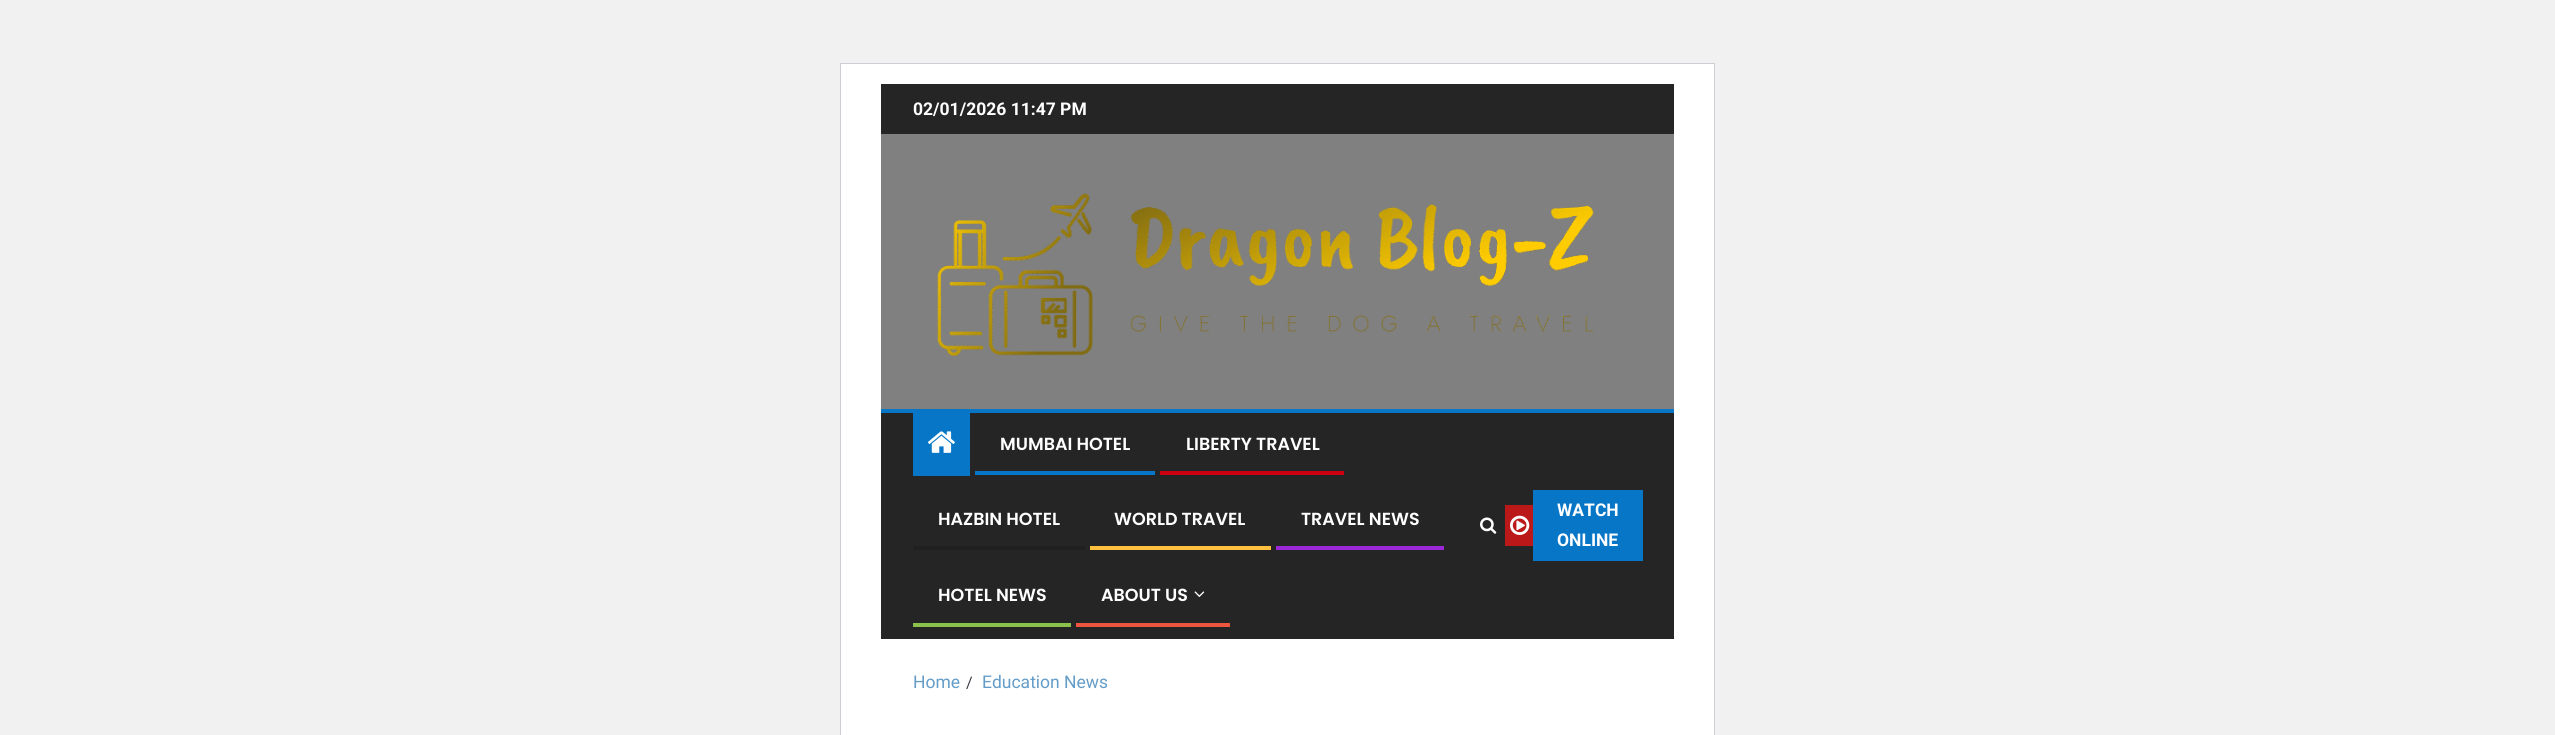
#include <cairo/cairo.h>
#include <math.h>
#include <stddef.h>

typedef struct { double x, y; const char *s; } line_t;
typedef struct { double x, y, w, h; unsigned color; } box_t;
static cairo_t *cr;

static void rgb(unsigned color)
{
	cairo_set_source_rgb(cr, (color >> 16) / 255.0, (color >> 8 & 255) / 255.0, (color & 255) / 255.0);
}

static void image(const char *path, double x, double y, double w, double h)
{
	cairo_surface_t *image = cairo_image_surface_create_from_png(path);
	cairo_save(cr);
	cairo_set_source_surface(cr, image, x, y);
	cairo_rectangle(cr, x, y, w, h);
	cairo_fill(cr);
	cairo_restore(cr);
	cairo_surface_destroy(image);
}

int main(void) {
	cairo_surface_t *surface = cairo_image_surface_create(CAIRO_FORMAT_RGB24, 2555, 735);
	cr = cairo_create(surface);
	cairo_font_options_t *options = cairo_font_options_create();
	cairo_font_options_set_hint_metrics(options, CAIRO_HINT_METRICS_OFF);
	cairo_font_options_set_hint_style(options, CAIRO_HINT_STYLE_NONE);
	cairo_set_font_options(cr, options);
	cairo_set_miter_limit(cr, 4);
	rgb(0xf1f1f1);
	cairo_paint(cr);
	rgb(0xffffff);
	cairo_rectangle(cr, 840.5, 63.5, 874, 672);
	cairo_fill_preserve(cr);
	rgb(0xccd0d4);
	cairo_set_line_width(cr, 1);
	cairo_stroke(cr);
	rgb(0x252525);
	cairo_rectangle(cr, 881, 84, 793, 50);
	cairo_fill(cr);
	rgb(0x808080);
	cairo_rectangle(cr, 881, 134, 793, 275);
	cairo_fill(cr);
	image("img/1.png", 937, 193, 657, 164);
	{
		static const box_t items[] = {
			{881, 413, 793, 226, 0x252525},
			{881, 409, 793, 4, 0x0776c6},
			{913, 413, 57, 63, 0x0776c6},
		};
		for (size_t i = 0; i < sizeof items / sizeof *items; i++) {
			rgb(items[i].color);
			cairo_rectangle(cr, items[i].x, items[i].y, items[i].w, items[i].h);
			cairo_fill(cr);
		}
	}
	image("img/2.png", 928, 431, 27, 22);
	{
		static const box_t items[] = {
			{975, 471, 180, 4, 0x0776c6},
			{1160, 471, 184, 4, 0xcc0010},
			{913, 546, 172, 4, 0x202020},
			{1090, 546, 181, 4, 0xffbf3f},
			{1276, 546, 168, 4, 0x9c27d9},
			{913, 623, 158, 4, 0x8bc34a},
		};
		for (size_t i = 0; i < sizeof items / sizeof *items; i++) {
			rgb(items[i].color);
			cairo_rectangle(cr, items[i].x, items[i].y, items[i].w, items[i].h);
			cairo_fill(cr);
		}
	}
	image("img/3.png", 1194, 591, 11, 6);
	rgb(0xed553f);
	cairo_rectangle(cr, 1076, 623, 154, 4);
	cairo_fill(cr);
	image("img/4.png", 1480, 517, 17, 17);
	rgb(0xbb1919);
	cairo_rectangle(cr, 1505, 505, 28, 41);
	cairo_fill(cr);
	image("img/5.png", 1510, 515, 20, 20);
	rgb(0x0776c6);
	cairo_rectangle(cr, 1533, 490, 110, 71);
	cairo_fill(cr);
	cairo_select_font_face(cr, "Roboto", CAIRO_FONT_SLANT_NORMAL, CAIRO_FONT_WEIGHT_BOLD);
	cairo_set_font_size(cr, 17.5);
	rgb(0xffffff);
	cairo_move_to(cr, 913, 115);
	cairo_show_text(cr, "02/01/2026 11:47 PM");
	cairo_select_font_face(cr, "Poppins SemiBold", CAIRO_FONT_SLANT_NORMAL, CAIRO_FONT_WEIGHT_NORMAL);
	{
		static const line_t items[] = {
			{1000, 450, "MUMBAI HOTEL"},
			{1186, 450, "LIBERTY TRAVEL"},
			{938, 525, "HAZBIN HOTEL"},
			{1114, 525, "WORLD TRAVEL"},
			{1301, 525, "TRAVEL NEWS"},
			{938, 601, "HOTEL NEWS"},
			{1101, 601, "ABOUT US"},
		};
		for (size_t i = 0; i < sizeof items / sizeof *items; i++) {
			cairo_move_to(cr, items[i].x, items[i].y);
			cairo_show_text(cr, items[i].s);
		}
	}
	cairo_select_font_face(cr, "Roboto", CAIRO_FONT_SLANT_NORMAL, CAIRO_FONT_WEIGHT_BOLD);
	cairo_move_to(cr, 1557, 516);
	cairo_show_text(cr, "WATCH");
	cairo_move_to(cr, 1557, 546);
	cairo_show_text(cr, "ONLINE");
	cairo_select_font_face(cr, "Roboto", CAIRO_FONT_SLANT_NORMAL, CAIRO_FONT_WEIGHT_NORMAL);
	rgb(0x649cc8);
	cairo_move_to(cr, 913, 688);
	cairo_show_text(cr, "Home");
	cairo_set_font_size(cr, 16);
	rgb(0x393e46);
	cairo_move_to(cr, 966, 688);
	cairo_show_text(cr, "/");
	cairo_set_font_size(cr, 17.5);
	rgb(0x649cc8);
	cairo_move_to(cr, 982, 688);
	cairo_show_text(cr, "Education News");
	cairo_surface_write_to_png(surface, "page.png");
	cairo_font_options_destroy(options);
	cairo_destroy(cr);
	cairo_surface_destroy(surface);
	return 0;
}
